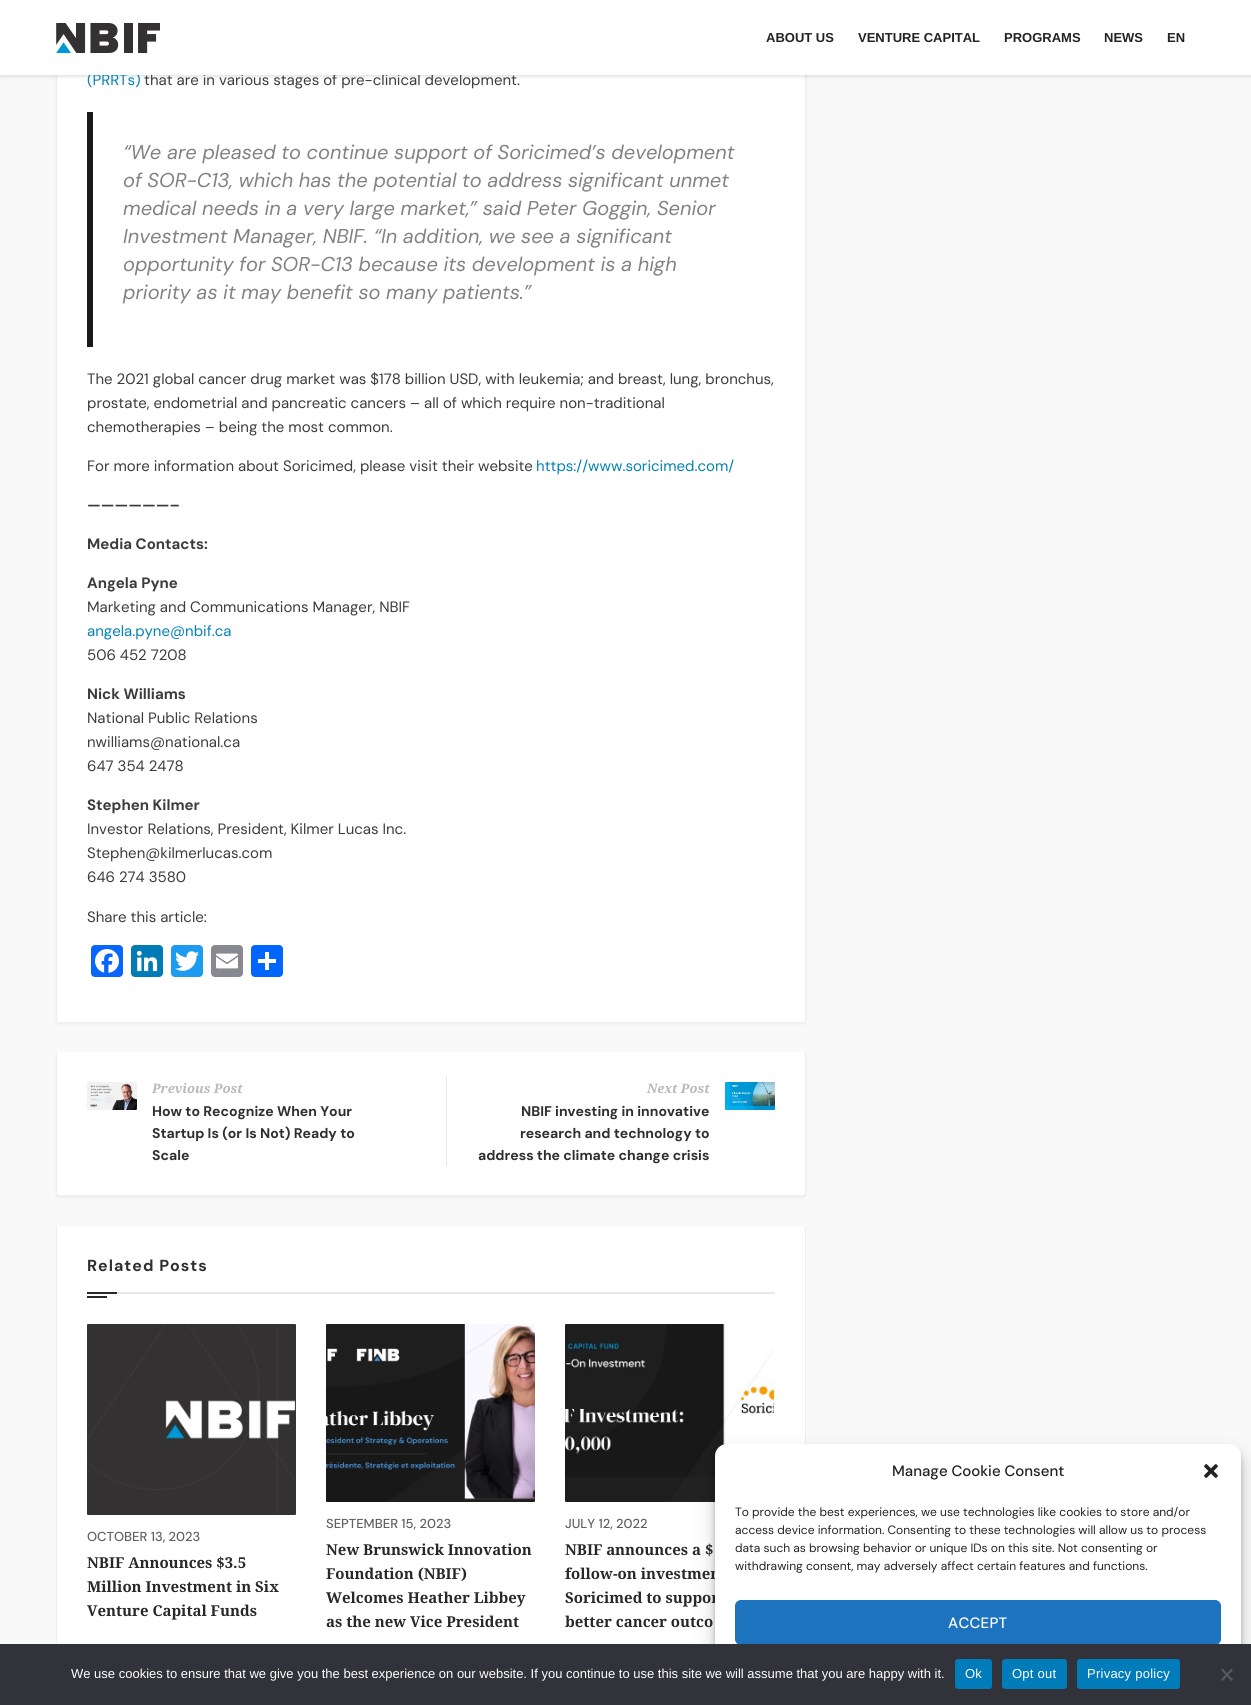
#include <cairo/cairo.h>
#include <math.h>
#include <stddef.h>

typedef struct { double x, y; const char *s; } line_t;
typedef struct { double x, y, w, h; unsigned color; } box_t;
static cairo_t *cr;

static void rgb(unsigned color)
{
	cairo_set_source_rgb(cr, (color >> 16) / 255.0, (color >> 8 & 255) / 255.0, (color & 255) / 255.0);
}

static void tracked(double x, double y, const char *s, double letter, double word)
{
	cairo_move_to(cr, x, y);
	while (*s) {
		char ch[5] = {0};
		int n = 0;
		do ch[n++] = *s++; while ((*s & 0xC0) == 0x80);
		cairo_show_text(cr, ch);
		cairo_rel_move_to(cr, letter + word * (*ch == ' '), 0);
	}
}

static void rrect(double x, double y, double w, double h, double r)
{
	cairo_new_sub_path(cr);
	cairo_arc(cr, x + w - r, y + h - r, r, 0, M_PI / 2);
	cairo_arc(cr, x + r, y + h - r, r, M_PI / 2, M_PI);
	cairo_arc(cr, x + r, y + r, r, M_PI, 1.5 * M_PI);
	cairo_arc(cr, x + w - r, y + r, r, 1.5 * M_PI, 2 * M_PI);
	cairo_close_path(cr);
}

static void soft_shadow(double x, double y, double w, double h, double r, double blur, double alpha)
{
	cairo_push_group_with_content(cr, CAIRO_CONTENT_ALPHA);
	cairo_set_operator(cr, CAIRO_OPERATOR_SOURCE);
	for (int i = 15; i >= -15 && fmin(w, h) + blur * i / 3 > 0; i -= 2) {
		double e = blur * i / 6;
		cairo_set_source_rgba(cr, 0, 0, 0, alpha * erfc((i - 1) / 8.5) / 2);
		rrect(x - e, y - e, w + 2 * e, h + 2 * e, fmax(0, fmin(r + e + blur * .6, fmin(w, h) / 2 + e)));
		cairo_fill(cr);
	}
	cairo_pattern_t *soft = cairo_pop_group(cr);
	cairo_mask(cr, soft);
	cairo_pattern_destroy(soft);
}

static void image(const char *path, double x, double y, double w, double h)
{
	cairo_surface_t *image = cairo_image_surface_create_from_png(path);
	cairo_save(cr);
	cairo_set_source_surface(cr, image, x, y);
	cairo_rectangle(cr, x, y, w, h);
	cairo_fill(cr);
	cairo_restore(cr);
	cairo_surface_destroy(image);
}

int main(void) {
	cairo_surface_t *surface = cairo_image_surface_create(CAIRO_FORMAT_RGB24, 1251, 1705);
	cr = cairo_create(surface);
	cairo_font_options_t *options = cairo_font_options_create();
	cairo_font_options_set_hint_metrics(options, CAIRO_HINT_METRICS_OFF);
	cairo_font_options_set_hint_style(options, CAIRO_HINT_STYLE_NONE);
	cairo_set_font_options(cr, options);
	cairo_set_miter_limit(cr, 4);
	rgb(0xf9f9f9);
	cairo_paint(cr);
	rgb(0x000000);
	soft_shadow(56, -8, 750, 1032, 3, 1.5, 0.05);
	rgb(0xffffff);
	cairo_new_path(cr);
	cairo_move_to(cr, 56, -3);
	cairo_line_to(cr, 806, -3);
	cairo_line_to(cr, 806, 1019);
	cairo_curve_to(cr, 806, 1020.5, 804.5, 1022, 803, 1022);
	cairo_line_to(cr, 59, 1022);
	cairo_curve_to(cr, 57.5, 1022, 56, 1020.5, 56, 1019);
	cairo_close_path(cr);
	cairo_fill(cr);
	rgb(0xeeeeee);
	cairo_rectangle(cr, 805, 75, 1, 946);
	cairo_fill(cr);
	cairo_rectangle(cr, 56, 75, 1, 946);
	cairo_fill(cr);
	rgb(0x000000);
	soft_shadow(0, 2, 1251, 75, 0, 1.5, 0.1);
	rgb(0x1b1a1a);
	cairo_rectangle(cr, 87, 112, 6, 235);
	cairo_fill(cr);
	rgb(0x0866ff);
	rrect(91, 945, 32, 32, 4);
	cairo_fill(cr);
	image("img/2.png", 95, 949, 24, 24);
	rgb(0x007bb5);
	rrect(131, 945, 32, 32, 4);
	cairo_fill(cr);
	image("img/3.png", 136, 950, 22, 22);
	rgb(0x1d9bf0);
	rrect(171, 945, 32, 32, 4);
	cairo_fill(cr);
	image("img/4.png", 175, 951, 24, 20);
	rgb(0x888990);
	rrect(211, 945, 32, 32, 4);
	cairo_fill(cr);
	image("img/5.png", 216, 953, 22, 16);
	rgb(0x0166ff);
	rrect(251, 945, 32, 32, 4);
	cairo_fill(cr);
	rgb(0xffffff);
	cairo_rectangle(cr, 265, 952, 4, 18);
	cairo_fill(cr);
	cairo_rectangle(cr, 258, 959, 18, 4);
	cairo_fill(cr);
	rgb(0x000000);
	soft_shadow(56, 1054, 750, 144, 3, 1.5, 0.05);
	rgb(0xffffff);
	cairo_new_path(cr);
	cairo_move_to(cr, 59, 1052);
	cairo_line_to(cr, 803, 1052);
	cairo_curve_to(cr, 804, 1052, 805, 1053, 805, 1055);
	cairo_line_to(cr, 805, 1193);
	cairo_curve_to(cr, 805, 1194, 804, 1195, 803, 1195);
	cairo_line_to(cr, 59, 1195);
	cairo_curve_to(cr, 58, 1195, 57, 1194, 57, 1193);
	cairo_line_to(cr, 57, 1055);
	cairo_curve_to(cr, 57, 1053, 58, 1052, 59, 1052);
	cairo_close_path(cr);
	cairo_fill(cr);
	rgb(0xeeeeee);
	cairo_set_fill_rule(cr, CAIRO_FILL_RULE_EVEN_ODD);
	cairo_new_path(cr);
	cairo_move_to(cr, 59, 1052);
	cairo_line_to(cr, 803, 1052);
	cairo_curve_to(cr, 805, 1052, 806, 1053, 806, 1055);
	cairo_line_to(cr, 806, 1193);
	cairo_curve_to(cr, 806, 1195, 805, 1196, 803, 1196);
	cairo_line_to(cr, 59, 1196);
	cairo_curve_to(cr, 57, 1196, 56, 1195, 56, 1193);
	cairo_line_to(cr, 56, 1055);
	cairo_curve_to(cr, 56, 1053, 57, 1052, 59, 1052);
	cairo_close_path(cr);
	cairo_move_to(cr, 59, 1052);
	cairo_line_to(cr, 803, 1052);
	cairo_curve_to(cr, 804, 1052, 805, 1053, 805, 1055);
	cairo_line_to(cr, 805, 1193);
	cairo_curve_to(cr, 805, 1194, 804, 1195, 803, 1195);
	cairo_line_to(cr, 59, 1195);
	cairo_curve_to(cr, 58, 1195, 57, 1194, 57, 1193);
	cairo_line_to(cr, 57, 1055);
	cairo_curve_to(cr, 57, 1053, 58, 1052, 59, 1052);
	cairo_close_path(cr);
	cairo_fill(cr);
	image("img/6.png", 87, 1082, 50, 28);
	rgb(0xe8e8e8);
	cairo_rectangle(cr, 446, 1076, 1, 90);
	cairo_fill(cr);
	image("img/7.png", 725, 1082, 50, 28);
	rgb(0xffffff);
	cairo_set_fill_rule(cr, CAIRO_FILL_RULE_WINDING);
	cairo_new_path(cr);
	cairo_move_to(cr, 59, 1226);
	cairo_line_to(cr, 803, 1226);
	cairo_curve_to(cr, 804, 1226, 805, 1227, 805, 1229);
	cairo_line_to(cr, 805, 1681);
	cairo_curve_to(cr, 805, 1682, 804, 1683, 803, 1683);
	cairo_line_to(cr, 59, 1683);
	cairo_curve_to(cr, 58, 1683, 57, 1682, 57, 1681);
	cairo_line_to(cr, 57, 1229);
	cairo_curve_to(cr, 57, 1227, 58, 1226, 59, 1226);
	cairo_close_path(cr);
	cairo_fill(cr);
	rgb(0xeeeeee);
	cairo_set_fill_rule(cr, CAIRO_FILL_RULE_EVEN_ODD);
	cairo_new_path(cr);
	cairo_move_to(cr, 59, 1226);
	cairo_line_to(cr, 803, 1226);
	cairo_curve_to(cr, 805, 1226, 806, 1227, 806, 1229);
	cairo_line_to(cr, 806, 1681);
	cairo_curve_to(cr, 806, 1683, 805, 1684, 803, 1684);
	cairo_line_to(cr, 59, 1684);
	cairo_curve_to(cr, 57, 1684, 56, 1683, 56, 1681);
	cairo_line_to(cr, 56, 1229);
	cairo_curve_to(cr, 56, 1227, 57, 1226, 59, 1226);
	cairo_close_path(cr);
	cairo_move_to(cr, 59, 1226);
	cairo_line_to(cr, 803, 1226);
	cairo_curve_to(cr, 804, 1226, 805, 1227, 805, 1229);
	cairo_line_to(cr, 805, 1681);
	cairo_curve_to(cr, 805, 1682, 804, 1683, 803, 1683);
	cairo_line_to(cr, 59, 1683);
	cairo_curve_to(cr, 58, 1683, 57, 1682, 57, 1681);
	cairo_line_to(cr, 57, 1229);
	cairo_curve_to(cr, 57, 1227, 58, 1226, 59, 1226);
	cairo_close_path(cr);
	cairo_fill(cr);
	{
		static const box_t items[] = {
			{117, 1292, 658, 2, 0xe8e8e8},
			{87, 1292, 30, 2, 0x282828},
			{87, 1296, 20, 2, 0x282828},
		};
		for (size_t i = 0; i < sizeof items / sizeof *items; i++) {
			rgb(items[i].color);
			cairo_rectangle(cr, items[i].x, items[i].y, items[i].w, items[i].h);
			cairo_fill(cr);
		}
	}
	image("img/8.png", 87, 1324, 209, 191);
	image("img/9.png", 326, 1324, 209, 178);
	image("img/10.png", 565, 1324, 209, 178);
	rgb(0x000000);
	soft_shadow(715, 1450, 526, 251, 12, 3, 0.23);
	soft_shadow(715, 1454, 526, 251, 12, 10, 0.19);
	cairo_select_font_face(cr, "DM Sans", CAIRO_FONT_SLANT_NORMAL, CAIRO_FONT_WEIGHT_NORMAL);
	cairo_set_font_size(cr, 15);
	rgb(0x0382b5);
	cairo_move_to(cr, 87, 85);
	cairo_show_text(cr, "(PRRTs)");
	rgb(0x3c3c3c);
	cairo_move_to(cr, 144, 85);
	cairo_show_text(cr, "that are in various stages of pre-clinical development.");
	rgb(0xffffff);
	cairo_rectangle(cr, 0, 0, 1251, 75);
	cairo_fill(cr);
	cairo_select_font_face(cr, "Liberation Sans", CAIRO_FONT_SLANT_NORMAL, CAIRO_FONT_WEIGHT_BOLD);
	cairo_set_font_size(cr, 13);
	rgb(0x222222);
	{
		static const line_t items[] = {
			{1167, 42, "EN"},
			{1104, 42, "NEWS"},
			{1004, 42, "PROGRAMS"},
			{858, 42, "VENTURE CAPITAL"},
			{766, 42, "ABOUT US"},
		};
		for (size_t i = 0; i < sizeof items / sizeof *items; i++) {
			cairo_move_to(cr, items[i].x, items[i].y);
			cairo_show_text(cr, items[i].s);
		}
	}
	image("img/1.png", 56, 23, 104, 30);
	cairo_select_font_face(cr, "DM Sans", CAIRO_FONT_SLANT_ITALIC, CAIRO_FONT_WEIGHT_NORMAL);
	cairo_set_font_size(cr, 20);
	rgb(0x828282);
	{
		static const line_t items[] = {
			{123, 159, "“We are pleased to continue support of Soricimed’s development"},
			{123, 187, "of SOR-C13, which has the potential to address significant unmet"},
			{123, 215, "medical needs in a very large market,” said Peter Goggin, Senior"},
			{123, 243, "Investment Manager, NBIF. “In addition, we see a significant"},
			{123, 271, "opportunity for SOR-C13 because its development is a high"},
			{123, 299, "priority as it may benefit so many patients.”"},
		};
		for (size_t i = 0; i < sizeof items / sizeof *items; i++) {
			cairo_move_to(cr, items[i].x, items[i].y);
			cairo_show_text(cr, items[i].s);
		}
	}
	cairo_select_font_face(cr, "DM Sans", CAIRO_FONT_SLANT_NORMAL, CAIRO_FONT_WEIGHT_NORMAL);
	cairo_set_font_size(cr, 15);
	rgb(0x3c3c3c);
	{
		static const line_t items[] = {
			{87, 384, "The 2021 global cancer drug market was $178 billion USD, with leukemia; and breast, lung, bronchus,"},
			{87, 408, "prostate, endometrial and pancreatic cancers – all of which require non-traditional"},
			{87, 432, "chemotherapies – being the most common."},
			{87, 471, "For more information about Soricimed, please visit their website"},
		};
		for (size_t i = 0; i < sizeof items / sizeof *items; i++) {
			cairo_move_to(cr, items[i].x, items[i].y);
			cairo_show_text(cr, items[i].s);
		}
	}
	rgb(0x0382b5);
	cairo_move_to(cr, 536, 471);
	cairo_show_text(cr, "https://www.soricimed.com/");
	cairo_select_font_face(cr, "DM Sans", CAIRO_FONT_SLANT_NORMAL, CAIRO_FONT_WEIGHT_BOLD);
	rgb(0x3c3c3c);
	{
		static const line_t items[] = {
			{87, 510, "——————–"},
			{87, 549, "Media Contacts:"},
			{87, 588, "Angela Pyne"},
		};
		for (size_t i = 0; i < sizeof items / sizeof *items; i++) {
			cairo_move_to(cr, items[i].x, items[i].y);
			cairo_show_text(cr, items[i].s);
		}
	}
	cairo_select_font_face(cr, "DM Sans", CAIRO_FONT_SLANT_NORMAL, CAIRO_FONT_WEIGHT_NORMAL);
	cairo_move_to(cr, 87, 612);
	cairo_show_text(cr, "Marketing and Communications Manager, NBIF");
	rgb(0x0382b5);
	cairo_move_to(cr, 87, 636);
	cairo_show_text(cr, "angela.pyne@nbif.ca");
	rgb(0x3c3c3c);
	cairo_move_to(cr, 87, 660);
	cairo_show_text(cr, "506 452 7208");
	cairo_select_font_face(cr, "DM Sans", CAIRO_FONT_SLANT_NORMAL, CAIRO_FONT_WEIGHT_BOLD);
	cairo_move_to(cr, 87, 699);
	cairo_show_text(cr, "Nick Williams");
	cairo_select_font_face(cr, "DM Sans", CAIRO_FONT_SLANT_NORMAL, CAIRO_FONT_WEIGHT_NORMAL);
	{
		static const line_t items[] = {
			{87, 723, "National Public Relations"},
			{87, 747, "nwilliams@national.ca"},
			{87, 771, "647 354 2478"},
		};
		for (size_t i = 0; i < sizeof items / sizeof *items; i++) {
			cairo_move_to(cr, items[i].x, items[i].y);
			cairo_show_text(cr, items[i].s);
		}
	}
	cairo_select_font_face(cr, "DM Sans", CAIRO_FONT_SLANT_NORMAL, CAIRO_FONT_WEIGHT_BOLD);
	cairo_move_to(cr, 87, 810);
	cairo_show_text(cr, "Stephen Kilmer");
	cairo_select_font_face(cr, "DM Sans", CAIRO_FONT_SLANT_NORMAL, CAIRO_FONT_WEIGHT_NORMAL);
	{
		static const line_t items[] = {
			{87, 834, "Investor Relations, President, Kilmer Lucas Inc."},
			{87, 858, "Stephen@kilmerlucas.com"},
			{87, 882, "646 274 3580"},
			{87, 922, "Share this article:"},
		};
		for (size_t i = 0; i < sizeof items / sizeof *items; i++) {
			cairo_move_to(cr, items[i].x, items[i].y);
			cairo_show_text(cr, items[i].s);
		}
	}
	cairo_select_font_face(cr, "Droid Serif", CAIRO_FONT_SLANT_ITALIC, CAIRO_FONT_WEIGHT_BOLD);
	cairo_set_font_size(cr, 13);
	rgb(0xb8b8b8);
	cairo_move_to(cr, 152, 1093);
	cairo_show_text(cr, "Previous Post");
	cairo_select_font_face(cr, "DM Sans", CAIRO_FONT_SLANT_NORMAL, CAIRO_FONT_WEIGHT_BOLD);
	cairo_set_font_size(cr, 14);
	rgb(0x2f2f2f);
	{
		static const line_t items[] = {
			{152, 1116, "How to Recognize When Your"},
			{152, 1138, "Startup Is (or Is Not) Ready to"},
			{152, 1160, "Scale"},
		};
		for (size_t i = 0; i < sizeof items / sizeof *items; i++) {
			cairo_move_to(cr, items[i].x, items[i].y);
			cairo_show_text(cr, items[i].s);
		}
	}
	cairo_select_font_face(cr, "Droid Serif", CAIRO_FONT_SLANT_ITALIC, CAIRO_FONT_WEIGHT_BOLD);
	cairo_set_font_size(cr, 13);
	rgb(0xb8b8b8);
	cairo_move_to(cr, 647, 1093);
	cairo_show_text(cr, "Next Post");
	cairo_select_font_face(cr, "DM Sans", CAIRO_FONT_SLANT_NORMAL, CAIRO_FONT_WEIGHT_BOLD);
	cairo_set_font_size(cr, 14);
	rgb(0x2f2f2f);
	{
		static const line_t items[] = {
			{521, 1116, "NBIF investing in innovative"},
			{520, 1138, "research and technology to"},
			{478, 1160, "address the climate change crisis"},
		};
		for (size_t i = 0; i < sizeof items / sizeof *items; i++) {
			cairo_move_to(cr, items[i].x, items[i].y);
			cairo_show_text(cr, items[i].s);
		}
	}
	cairo_set_font_size(cr, 16);
	tracked(87, 1271, "Related Posts", 1, 0);
	cairo_select_font_face(cr, "DM Sans Medium", CAIRO_FONT_SLANT_NORMAL, CAIRO_FONT_WEIGHT_NORMAL);
	cairo_set_font_size(cr, 13);
	rgb(0x616161);
	cairo_move_to(cr, 87, 1541);
	cairo_show_text(cr, "OCTOBER 13, 2023");
	cairo_select_font_face(cr, "Droid Serif", CAIRO_FONT_SLANT_NORMAL, CAIRO_FONT_WEIGHT_BOLD);
	cairo_set_font_size(cr, 15);
	rgb(0x282828);
	{
		static const line_t items[] = {
			{87, 1568, "NBIF Announces $3.5"},
			{87, 1592, "Million Investment in Six"},
			{87, 1616, "Venture Capital Funds"},
		};
		for (size_t i = 0; i < sizeof items / sizeof *items; i++) {
			cairo_move_to(cr, items[i].x, items[i].y);
			cairo_show_text(cr, items[i].s);
		}
	}
	cairo_select_font_face(cr, "DM Sans Medium", CAIRO_FONT_SLANT_NORMAL, CAIRO_FONT_WEIGHT_NORMAL);
	cairo_set_font_size(cr, 13);
	rgb(0x616161);
	cairo_move_to(cr, 326, 1528);
	cairo_show_text(cr, "SEPTEMBER 15, 2023");
	cairo_select_font_face(cr, "Droid Serif", CAIRO_FONT_SLANT_NORMAL, CAIRO_FONT_WEIGHT_BOLD);
	cairo_set_font_size(cr, 15);
	rgb(0x282828);
	{
		static const line_t items[] = {
			{326, 1555, "New Brunswick Innovation"},
			{326, 1579, "Foundation (NBIF)"},
			{326, 1603, "Welcomes Heather Libbey"},
			{326, 1627, "as the new Vice President"},
		};
		for (size_t i = 0; i < sizeof items / sizeof *items; i++) {
			cairo_move_to(cr, items[i].x, items[i].y);
			cairo_show_text(cr, items[i].s);
		}
	}
	cairo_select_font_face(cr, "DM Sans Medium", CAIRO_FONT_SLANT_NORMAL, CAIRO_FONT_WEIGHT_NORMAL);
	cairo_set_font_size(cr, 13);
	rgb(0x616161);
	cairo_move_to(cr, 565, 1528);
	cairo_show_text(cr, "JULY 12, 2022");
	cairo_select_font_face(cr, "Droid Serif", CAIRO_FONT_SLANT_NORMAL, CAIRO_FONT_WEIGHT_BOLD);
	cairo_set_font_size(cr, 15);
	rgb(0x282828);
	{
		static const line_t items[] = {
			{565, 1555, "NBIF announces a $"},
			{565, 1579, "follow-on investmen"},
			{565, 1603, "Soricimed to suppor"},
			{565, 1627, "better cancer outco"},
		};
		for (size_t i = 0; i < sizeof items / sizeof *items; i++) {
			cairo_move_to(cr, items[i].x, items[i].y);
			cairo_show_text(cr, items[i].s);
		}
	}
	rgb(0xffffff);
	rrect(715, 1444, 526, 251, 12);
	cairo_fill(cr);
	cairo_select_font_face(cr, "DM Sans Medium", CAIRO_FONT_SLANT_NORMAL, CAIRO_FONT_WEIGHT_NORMAL);
	rgb(0x222222);
	cairo_move_to(cr, 892, 1476);
	cairo_show_text(cr, "Manage Cookie Consent");
	image("img/11.png", 1204, 1464, 14, 14);
	cairo_select_font_face(cr, "DM Sans", CAIRO_FONT_SLANT_NORMAL, CAIRO_FONT_WEIGHT_NORMAL);
	cairo_set_font_size(cr, 12);
	{
		static const line_t items[] = {
			{735, 1516, "To provide the best experiences, we use technologies like cookies to store and/or"},
			{735, 1534, "access device information. Consenting to these technologies will allow us to process"},
			{735, 1552, "data such as browsing behavior or unique IDs on this site. Not consenting or"},
			{735, 1570, "withdrawing consent, may adversely affect certain features and functions."},
		};
		for (size_t i = 0; i < sizeof items / sizeof *items; i++) {
			cairo_move_to(cr, items[i].x, items[i].y);
			cairo_show_text(cr, items[i].s);
		}
	}
	rgb(0x1e73be);
	rrect(735.5, 1600.5, 485, 44, 5.5);
	cairo_fill_preserve(cr);
	cairo_set_line_width(cr, 1);
	cairo_stroke(cr);
	cairo_select_font_face(cr, "DM Sans Medium", CAIRO_FONT_SLANT_NORMAL, CAIRO_FONT_WEIGHT_NORMAL);
	cairo_set_font_size(cr, 15);
	rgb(0xffffff);
	tracked(948, 1628, "ACCEPT", 0.25, 0);
	rgb(0x32323a);
	cairo_rectangle(cr, 0, 1644, 1251, 61);
	cairo_fill(cr);
	cairo_select_font_face(cr, "Liberation Sans", CAIRO_FONT_SLANT_NORMAL, CAIRO_FONT_WEIGHT_NORMAL);
	cairo_set_font_size(cr, 13);
	rgb(0xffffff);
	cairo_move_to(cr, 71, 1678);
	cairo_show_text(cr, "We use cookies to ensure that we give you the best experience on our website. If you continue to use this site we will assume that you are happy with it.");
	rgb(0x007cba);
	rrect(955, 1659, 37, 30, 3);
	cairo_fill(cr);
	rgb(0xffffff);
	tracked(965, 1678, "Ok", 0.25, 0);
	rgb(0x007cba);
	rrect(1002, 1659, 65, 30, 3);
	cairo_fill(cr);
	rgb(0xffffff);
	tracked(1012, 1678, "Opt out", 0.25, 0);
	rgb(0x007cba);
	rrect(1077, 1659, 103, 30, 3);
	cairo_fill(cr);
	rgb(0xffffff);
	tracked(1087, 1678, "Privacy policy", 0.25, 0);
	rgb(0x59595d);
	cairo_set_fill_rule(cr, CAIRO_FILL_RULE_WINDING);
	cairo_new_path(cr);
	cairo_move_to(cr, 1231.5, 1668.5);
	cairo_line_to(cr, 1233, 1670);
	cairo_line_to(cr, 1222.5, 1681);
	cairo_line_to(cr, 1221, 1679.5);
	cairo_close_path(cr);
	cairo_fill(cr);
	cairo_new_path(cr);
	cairo_move_to(cr, 1221, 1670);
	cairo_line_to(cr, 1222.5, 1668.5);
	cairo_line_to(cr, 1233, 1679.5);
	cairo_line_to(cr, 1231.5, 1681);
	cairo_close_path(cr);
	cairo_fill(cr);
	cairo_surface_write_to_png(surface, "page.png");
	cairo_font_options_destroy(options);
	cairo_destroy(cr);
	cairo_surface_destroy(surface);
	return 0;
}
